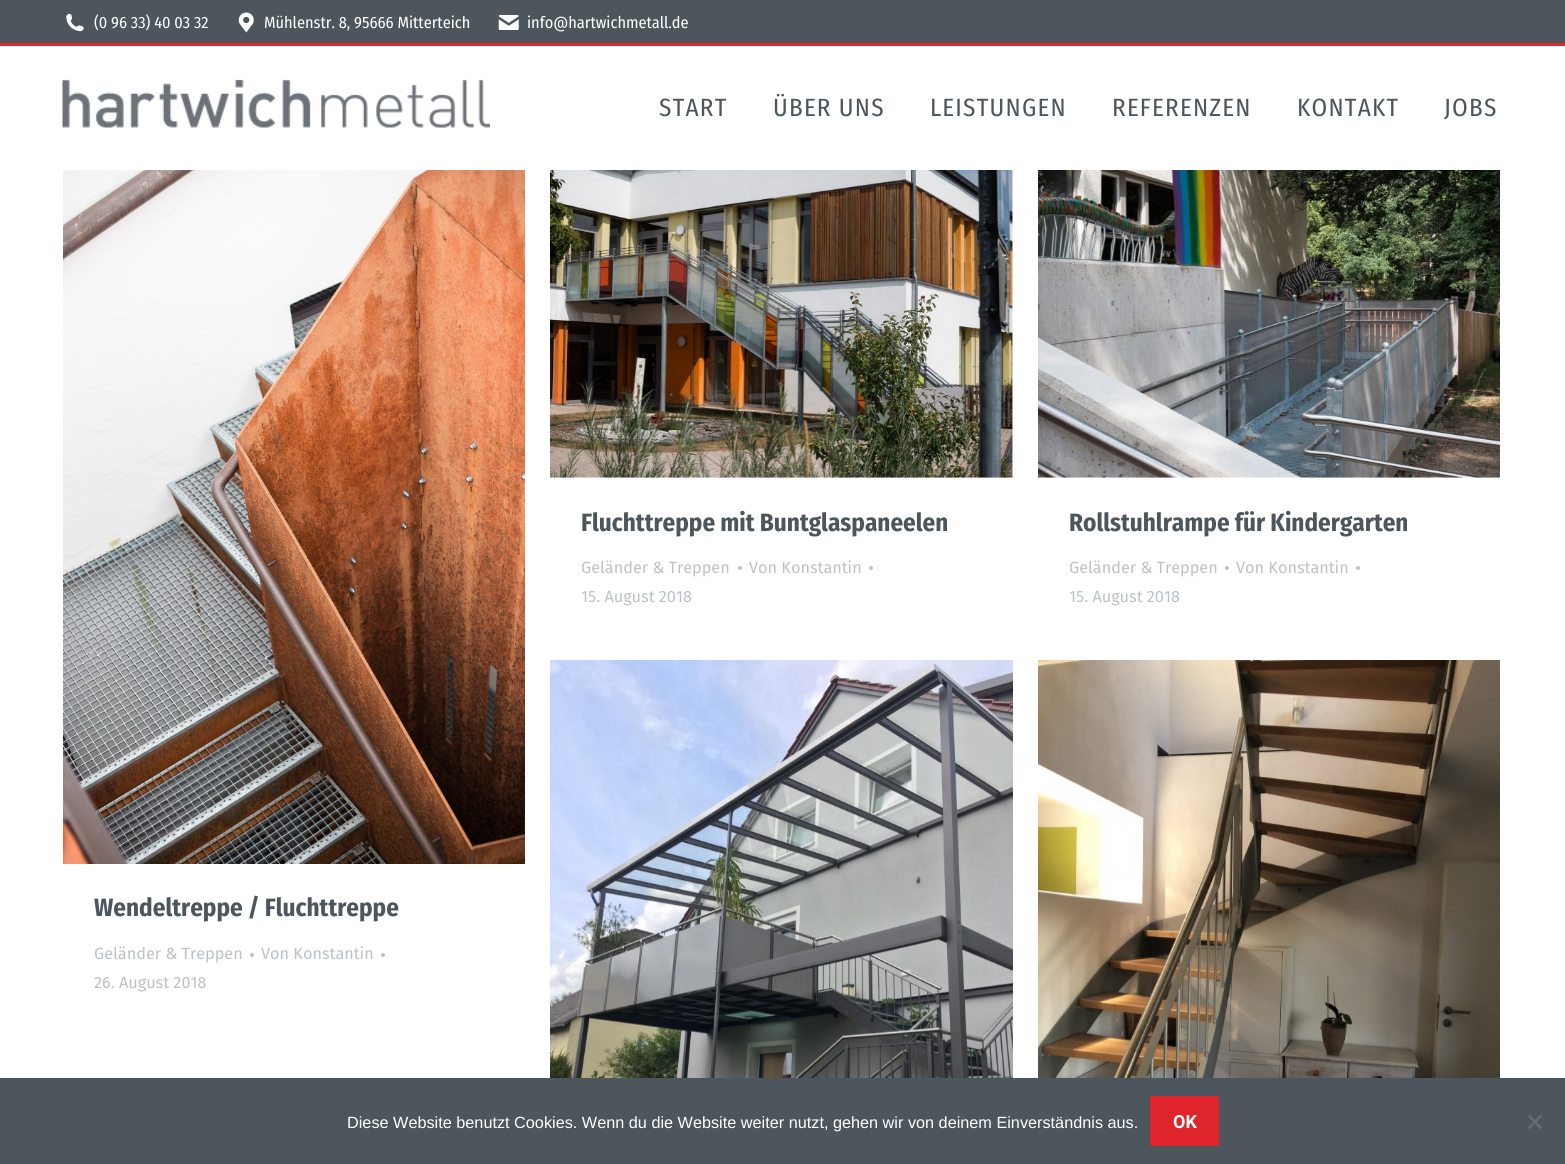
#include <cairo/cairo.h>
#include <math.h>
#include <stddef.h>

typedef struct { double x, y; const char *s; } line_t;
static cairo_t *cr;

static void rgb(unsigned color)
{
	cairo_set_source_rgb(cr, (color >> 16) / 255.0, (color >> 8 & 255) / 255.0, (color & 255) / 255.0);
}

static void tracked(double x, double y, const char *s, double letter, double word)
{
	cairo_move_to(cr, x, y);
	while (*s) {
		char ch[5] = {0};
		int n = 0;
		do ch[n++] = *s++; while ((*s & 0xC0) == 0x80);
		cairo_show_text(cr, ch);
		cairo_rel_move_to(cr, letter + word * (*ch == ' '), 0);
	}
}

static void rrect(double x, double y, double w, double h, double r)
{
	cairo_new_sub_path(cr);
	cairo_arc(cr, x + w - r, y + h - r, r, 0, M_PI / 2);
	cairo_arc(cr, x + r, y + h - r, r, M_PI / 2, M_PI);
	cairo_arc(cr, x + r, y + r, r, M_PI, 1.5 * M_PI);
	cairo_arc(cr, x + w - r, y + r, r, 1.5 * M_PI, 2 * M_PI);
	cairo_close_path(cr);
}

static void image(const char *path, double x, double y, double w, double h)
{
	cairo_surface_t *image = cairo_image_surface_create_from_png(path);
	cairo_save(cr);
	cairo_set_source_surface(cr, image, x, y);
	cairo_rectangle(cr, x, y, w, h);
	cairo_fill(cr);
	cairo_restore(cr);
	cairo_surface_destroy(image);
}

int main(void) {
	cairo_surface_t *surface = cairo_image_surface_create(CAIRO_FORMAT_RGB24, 1565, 1164);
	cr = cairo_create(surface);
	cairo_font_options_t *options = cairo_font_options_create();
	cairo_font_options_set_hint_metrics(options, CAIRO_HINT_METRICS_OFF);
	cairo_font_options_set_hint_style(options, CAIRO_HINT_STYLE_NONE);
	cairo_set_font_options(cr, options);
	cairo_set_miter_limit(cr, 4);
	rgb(0xffffff);
	cairo_paint(cr);
	rgb(0x4c565c);
	cairo_rectangle(cr, 0, 0, 1565, 43);
	cairo_fill(cr);
	image("img/1.png", 66, 13, 18, 19);
	image("img/2.png", 238, 12, 16, 21);
	image("img/3.png", 498, 15, 21, 15);
	rgb(0xdf242b);
	cairo_rectangle(cr, 0, 43, 1565, 3);
	cairo_fill(cr);
	image("img/4.png", 62, 79, 428, 49);
	image("img/5.png", 550, 170, 463, 308);
	rgb(0xbbc2c6);
	cairo_arc(cr, 740, 568, 2, 0, 2 * M_PI);
	cairo_fill(cr);
	cairo_arc(cr, 871, 568, 2, 0, 2 * M_PI);
	cairo_fill(cr);
	image("img/6.png", 1038, 170, 462, 308);
	cairo_arc(cr, 1227, 568, 2, 0, 2 * M_PI);
	cairo_fill(cr);
	cairo_arc(cr, 1358, 568, 2, 0, 2 * M_PI);
	cairo_fill(cr);
	image("img/7.png", 63, 170, 462, 694);
	cairo_arc(cr, 252, 955, 2, 0, 2 * M_PI);
	cairo_fill(cr);
	cairo_arc(cr, 383, 955, 2, 0, 2 * M_PI);
	cairo_fill(cr);
	image("img/8.png", 550, 660, 463, 418);
	image("img/9.png", 1038, 660, 462, 418);
	rgb(0x4c565c);
	cairo_rectangle(cr, 0, 1078, 1565, 86);
	cairo_fill(cr);
	rgb(0xdf242b);
	rrect(1150, 1096, 69, 50, 1);
	cairo_fill(cr);
	rgb(0x666b6e);
	cairo_new_path(cr);
	cairo_move_to(cr, 1540.5, 1114.5);
	cairo_line_to(cr, 1542.5, 1116);
	cairo_line_to(cr, 1529.5, 1129.5);
	cairo_line_to(cr, 1527.5, 1127.5);
	cairo_close_path(cr);
	cairo_fill(cr);
	cairo_new_path(cr);
	cairo_move_to(cr, 1527.5, 1116);
	cairo_line_to(cr, 1529.5, 1114.5);
	cairo_line_to(cr, 1542.5, 1127.5);
	cairo_line_to(cr, 1540.5, 1129.5);
	cairo_close_path(cr);
	cairo_fill(cr);
	cairo_select_font_face(cr, "Fira Sans Condensed", CAIRO_FONT_SLANT_NORMAL, CAIRO_FONT_WEIGHT_NORMAL);
	cairo_set_font_size(cr, 16.25);
	rgb(0xffffff);
	{
		static const line_t items[] = {
			{94, 28, "(0 96 33) 40 03 32"},
			{264, 28, "Mühlenstr. 8, 95666 Mitterteich"},
			{527, 28, "info@hartwichmetall.de"},
		};
		for (size_t i = 0; i < sizeof items / sizeof *items; i++) {
			cairo_move_to(cr, items[i].x, items[i].y);
			cairo_show_text(cr, items[i].s);
		}
	}
	cairo_set_font_size(cr, 25);
	rgb(0x4c565c);
	{
		static const line_t items[] = {
			{659, 116, "START"},
			{773, 116, "ÜBER UNS"},
			{930, 116, "LEISTUNGEN"},
			{1112, 116, "REFERENZEN"},
			{1297, 116, "KONTAKT"},
			{1444, 116, "JOBS"},
		};
		for (size_t i = 0; i < sizeof items / sizeof *items; i++) {
			tracked(items[i].x, items[i].y, items[i].s, 1.25, 0);
		}
	}
	cairo_select_font_face(cr, "Fira Sans Condensed", CAIRO_FONT_SLANT_NORMAL, CAIRO_FONT_WEIGHT_BOLD);
	cairo_move_to(cr, 581, 531);
	cairo_show_text(cr, "Fluchttreppe mit Buntglaspaneelen");
	cairo_select_font_face(cr, "Fira Sans", CAIRO_FONT_SLANT_NORMAL, CAIRO_FONT_WEIGHT_NORMAL);
	cairo_set_font_size(cr, 16.25);
	rgb(0xbbc2c6);
	{
		static const line_t items[] = {
			{581, 573, "Geländer & Treppen"},
			{749, 573, "Von Konstantin"},
			{581, 602, "15. August 2018"},
		};
		for (size_t i = 0; i < sizeof items / sizeof *items; i++) {
			cairo_move_to(cr, items[i].x, items[i].y);
			cairo_show_text(cr, items[i].s);
		}
	}
	cairo_select_font_face(cr, "Fira Sans Condensed", CAIRO_FONT_SLANT_NORMAL, CAIRO_FONT_WEIGHT_BOLD);
	cairo_set_font_size(cr, 25);
	rgb(0x4c565c);
	cairo_move_to(cr, 1069, 531);
	cairo_show_text(cr, "Rollstuhlrampe für Kindergarten");
	cairo_select_font_face(cr, "Fira Sans", CAIRO_FONT_SLANT_NORMAL, CAIRO_FONT_WEIGHT_NORMAL);
	cairo_set_font_size(cr, 16.25);
	rgb(0xbbc2c6);
	{
		static const line_t items[] = {
			{1069, 573, "Geländer & Treppen"},
			{1236, 573, "Von Konstantin"},
			{1069, 602, "15. August 2018"},
		};
		for (size_t i = 0; i < sizeof items / sizeof *items; i++) {
			cairo_move_to(cr, items[i].x, items[i].y);
			cairo_show_text(cr, items[i].s);
		}
	}
	cairo_select_font_face(cr, "Fira Sans Condensed", CAIRO_FONT_SLANT_NORMAL, CAIRO_FONT_WEIGHT_BOLD);
	cairo_set_font_size(cr, 25);
	rgb(0x4c565c);
	cairo_move_to(cr, 94, 916);
	cairo_show_text(cr, "Wendeltreppe / Fluchttreppe");
	cairo_select_font_face(cr, "Fira Sans", CAIRO_FONT_SLANT_NORMAL, CAIRO_FONT_WEIGHT_NORMAL);
	cairo_set_font_size(cr, 16.25);
	rgb(0xbbc2c6);
	{
		static const line_t items[] = {
			{94, 959, "Geländer & Treppen"},
			{261, 959, "Von Konstantin"},
			{94, 988, "26. August 2018"},
		};
		for (size_t i = 0; i < sizeof items / sizeof *items; i++) {
			cairo_move_to(cr, items[i].x, items[i].y);
			cairo_show_text(cr, items[i].s);
		}
	}
	cairo_select_font_face(cr, "Liberation Sans", CAIRO_FONT_SLANT_NORMAL, CAIRO_FONT_WEIGHT_NORMAL);
	rgb(0xffffff);
	cairo_move_to(cr, 347, 1128);
	cairo_show_text(cr, "Diese Website benutzt Cookies. Wenn du die Website weiter nutzt, gehen wir von deinem Einverständnis aus.");
	cairo_select_font_face(cr, "Roboto", CAIRO_FONT_SLANT_NORMAL, CAIRO_FONT_WEIGHT_BOLD);
	cairo_set_font_size(cr, 18);
	cairo_move_to(cr, 1173, 1128);
	cairo_show_text(cr, "OK");
	cairo_surface_write_to_png(surface, "page.png");
	cairo_font_options_destroy(options);
	cairo_destroy(cr);
	cairo_surface_destroy(surface);
	return 0;
}
